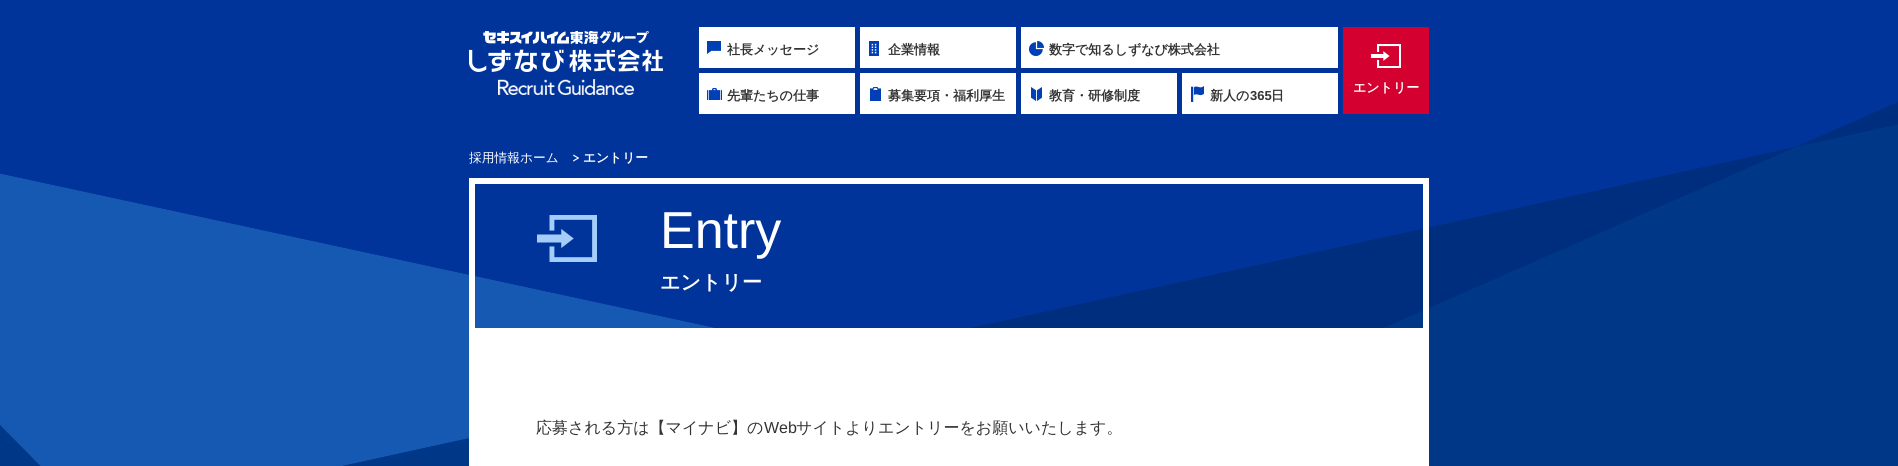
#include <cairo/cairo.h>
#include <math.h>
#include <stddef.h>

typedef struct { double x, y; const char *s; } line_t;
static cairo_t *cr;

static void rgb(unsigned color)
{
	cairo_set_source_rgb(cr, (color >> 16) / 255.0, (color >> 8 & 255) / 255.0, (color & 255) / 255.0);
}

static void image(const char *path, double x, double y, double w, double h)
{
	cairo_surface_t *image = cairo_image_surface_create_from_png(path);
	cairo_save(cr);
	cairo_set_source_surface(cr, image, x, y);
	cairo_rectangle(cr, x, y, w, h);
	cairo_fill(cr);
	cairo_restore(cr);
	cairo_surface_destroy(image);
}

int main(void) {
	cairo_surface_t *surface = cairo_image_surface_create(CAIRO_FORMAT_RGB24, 1898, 466);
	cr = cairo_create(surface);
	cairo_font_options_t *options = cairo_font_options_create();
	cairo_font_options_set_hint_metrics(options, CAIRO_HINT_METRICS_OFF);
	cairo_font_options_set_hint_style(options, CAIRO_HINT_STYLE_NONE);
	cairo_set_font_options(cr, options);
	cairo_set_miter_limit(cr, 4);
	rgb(0xffffff);
	cairo_paint(cr);
	image("img/1.png", 0, 0, 1898, 466);
	image("img/2.png", 469, 31, 194, 64);
	rgb(0xffffff);
	cairo_rectangle(cr, 699, 27, 156, 41);
	cairo_fill(cr);
	image("img/3.png", 707, 41, 14, 13);
	cairo_rectangle(cr, 860, 27, 156, 41);
	cairo_fill(cr);
	image("img/4.png", 869, 41, 10, 15);
	cairo_rectangle(cr, 1021, 27, 317, 41);
	cairo_fill(cr);
	image("img/5.png", 1029, 41, 15, 15);
	cairo_rectangle(cr, 699, 73, 156, 41);
	cairo_fill(cr);
	image("img/6.png", 707, 88, 15, 12);
	cairo_rectangle(cr, 860, 73, 156, 41);
	cairo_fill(cr);
	image("img/7.png", 870, 87, 11, 14);
	cairo_rectangle(cr, 1021, 73, 156, 41);
	cairo_fill(cr);
	image("img/8.png", 1031, 87, 11, 14);
	cairo_rectangle(cr, 1182, 73, 156, 41);
	cairo_fill(cr);
	image("img/9.png", 1191, 86, 13, 16);
	rgb(0xd40030);
	cairo_rectangle(cr, 1343, 27, 86, 87);
	cairo_fill(cr);
	image("img/10.png", 1371, 44, 30, 24);
	image("img/11.png", 573, 154, 6, 8);
	image("img/12.png", 537, 215, 60, 47);
	cairo_rectangle(cr, 472, 181, 954, 150);
	rgb(0xffffff);
	cairo_set_line_width(cr, 6);
	cairo_stroke(cr);
	cairo_rectangle(cr, 469, 334, 960, 132);
	cairo_fill(cr);
	cairo_select_font_face(cr, "WenQuanYi Zen Hei", CAIRO_FONT_SLANT_NORMAL, CAIRO_FONT_WEIGHT_BOLD);
	cairo_set_font_size(cr, 13);
	rgb(0x333333);
	{
		static const line_t items[] = {
			{727, 54, "社長メッセージ"},
			{888, 54, "企業情報"},
			{1049, 54, "数字で知るしずなび株式会社"},
			{727, 100, "先輩たちの仕事"},
			{888, 100, "募集要項・福利厚生"},
			{1049, 100, "教育・研修制度"},
			{1210, 100, "新人の"},
		};
		for (size_t i = 0; i < sizeof items / sizeof *items; i++) {
			cairo_move_to(cr, items[i].x, items[i].y);
			cairo_show_text(cr, items[i].s);
		}
	}
	cairo_select_font_face(cr, "Liberation Sans", CAIRO_FONT_SLANT_NORMAL, CAIRO_FONT_WEIGHT_BOLD);
	cairo_move_to(cr, 1250, 100);
	cairo_show_text(cr, "365");
	cairo_select_font_face(cr, "WenQuanYi Zen Hei", CAIRO_FONT_SLANT_NORMAL, CAIRO_FONT_WEIGHT_BOLD);
	cairo_move_to(cr, 1271, 100);
	cairo_show_text(cr, "日");
	rgb(0xffffff);
	cairo_move_to(cr, 1353, 92);
	cairo_show_text(cr, "エントリー");
	cairo_select_font_face(cr, "WenQuanYi Zen Hei Medium", CAIRO_FONT_SLANT_NORMAL, CAIRO_FONT_WEIGHT_NORMAL);
	cairo_set_font_size(cr, 12.75);
	cairo_move_to(cr, 469, 162);
	cairo_show_text(cr, "採用情報ホーム");
	cairo_select_font_face(cr, "WenQuanYi Zen Hei", CAIRO_FONT_SLANT_NORMAL, CAIRO_FONT_WEIGHT_BOLD);
	cairo_move_to(cr, 583, 162);
	cairo_show_text(cr, "エントリー");
	cairo_select_font_face(cr, "Liberation Sans", CAIRO_FONT_SLANT_NORMAL, CAIRO_FONT_WEIGHT_NORMAL);
	cairo_set_font_size(cr, 52);
	cairo_move_to(cr, 660, 248);
	cairo_show_text(cr, "Entry");
	cairo_select_font_face(cr, "WenQuanYi Zen Hei", CAIRO_FONT_SLANT_NORMAL, CAIRO_FONT_WEIGHT_BOLD);
	cairo_set_font_size(cr, 20);
	cairo_move_to(cr, 660, 289);
	cairo_show_text(cr, "エントリー");
	cairo_select_font_face(cr, "WenQuanYi Zen Hei Medium", CAIRO_FONT_SLANT_NORMAL, CAIRO_FONT_WEIGHT_NORMAL);
	cairo_set_font_size(cr, 16);
	rgb(0x333333);
	cairo_move_to(cr, 536, 433);
	cairo_show_text(cr, "応募される方は【マイナビ】の");
	cairo_select_font_face(cr, "Liberation Sans", CAIRO_FONT_SLANT_NORMAL, CAIRO_FONT_WEIGHT_NORMAL);
	cairo_move_to(cr, 764, 433);
	cairo_show_text(cr, "Web");
	cairo_select_font_face(cr, "WenQuanYi Zen Hei Medium", CAIRO_FONT_SLANT_NORMAL, CAIRO_FONT_WEIGHT_NORMAL);
	cairo_move_to(cr, 796, 433);
	cairo_show_text(cr, "サイトよりエントリーをお願いいたします。");
	cairo_surface_write_to_png(surface, "page.png");
	cairo_font_options_destroy(options);
	cairo_destroy(cr);
	cairo_surface_destroy(surface);
	return 0;
}
